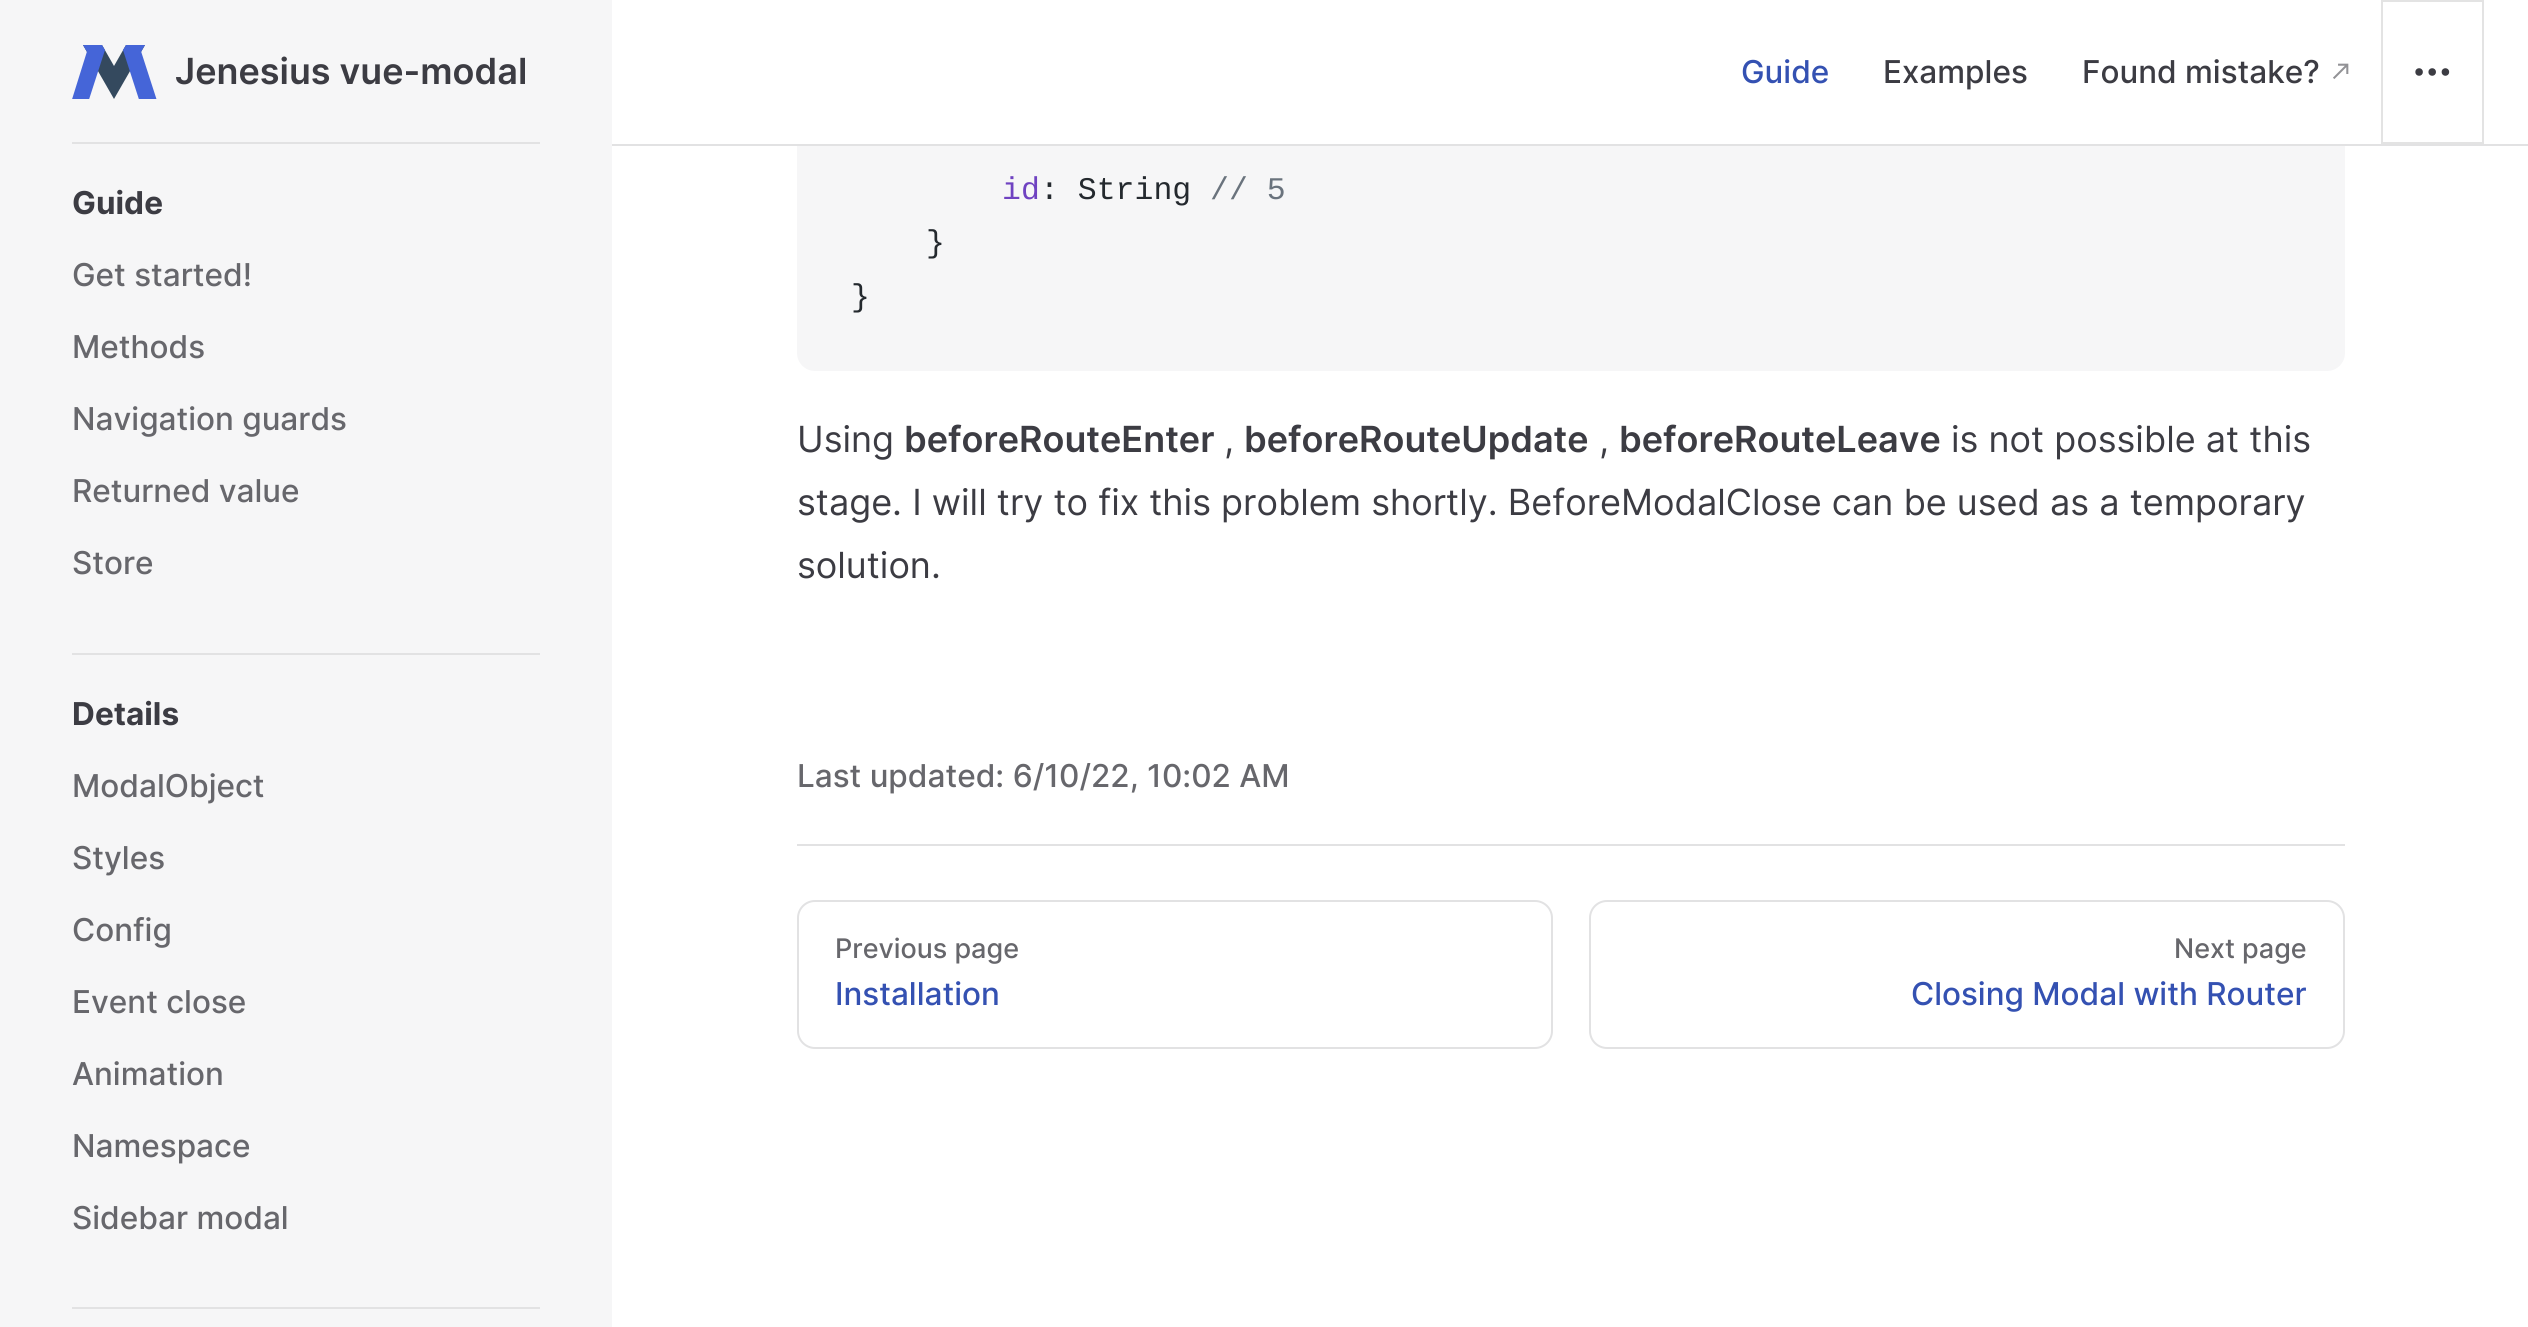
#include <cairo/cairo.h>
#include <math.h>
#include <stddef.h>

typedef struct { double x, y; const char *s; } line_t;
typedef struct { double x, y, w, h; unsigned color; } box_t;
static cairo_t *cr;

static void rgb(unsigned color)
{
	cairo_set_source_rgb(cr, (color >> 16) / 255.0, (color >> 8 & 255) / 255.0, (color & 255) / 255.0);
}

static void rrect(double x, double y, double w, double h, double r)
{
	cairo_new_sub_path(cr);
	cairo_arc(cr, x + w - r, y + h - r, r, 0, M_PI / 2);
	cairo_arc(cr, x + r, y + h - r, r, M_PI / 2, M_PI);
	cairo_arc(cr, x + r, y + r, r, M_PI, 1.5 * M_PI);
	cairo_arc(cr, x + w - r, y + r, r, 1.5 * M_PI, 2 * M_PI);
	cairo_close_path(cr);
}

static void image(const char *path, double x, double y, double w, double h)
{
	cairo_surface_t *image = cairo_image_surface_create_from_png(path);
	cairo_save(cr);
	cairo_set_source_surface(cr, image, x, y);
	cairo_rectangle(cr, x, y, w, h);
	cairo_fill(cr);
	cairo_restore(cr);
	cairo_surface_destroy(image);
}

int main(void) {
	cairo_surface_t *surface = cairo_image_surface_create(CAIRO_FORMAT_RGB24, 2528, 1327);
	cr = cairo_create(surface);
	cairo_font_options_t *options = cairo_font_options_create();
	cairo_font_options_set_hint_metrics(options, CAIRO_HINT_METRICS_OFF);
	cairo_font_options_set_hint_style(options, CAIRO_HINT_STYLE_NONE);
	cairo_set_font_options(cr, options);
	cairo_set_miter_limit(cr, 4);
	rgb(0xffffff);
	cairo_paint(cr);
	rgb(0xf6f6f7);
	cairo_rectangle(cr, 0, 0, 612, 1327);
	cairo_fill(cr);
	rgb(0xe2e2e3);
	cairo_rectangle(cr, 72, 142, 468, 2);
	cairo_fill(cr);
	rgb(0x34495e);
	cairo_new_path(cr);
	cairo_move_to(cr, 126, 45);
	cairo_line_to(cr, 114, 66);
	cairo_line_to(cr, 102, 45);
	cairo_line_to(cr, 83, 45);
	cairo_line_to(cr, 114, 99);
	cairo_line_to(cr, 145, 45);
	cairo_close_path(cr);
	cairo_fill(cr);
	cairo_save(cr);
	cairo_rectangle(cr, 72, 45, 86, 54);
	cairo_clip(cr);
	rgb(0x4565d8);
	cairo_new_path(cr);
	cairo_move_to(cr, 89, 45);
	cairo_line_to(cr, 87, 52);
	cairo_line_to(cr, 83, 45);
	cairo_line_to(cr, 102, 45);
	cairo_line_to(cr, 105, 50);
	cairo_line_to(cr, 74, 146);
	cairo_line_to(cr, 59, 141);
	cairo_close_path(cr);
	cairo_fill(cr);
	cairo_new_path(cr);
	cairo_move_to(cr, 139, 45);
	cairo_line_to(cr, 141, 52);
	cairo_line_to(cr, 145, 45);
	cairo_line_to(cr, 126, 45);
	cairo_line_to(cr, 123, 50);
	cairo_line_to(cr, 154, 146);
	cairo_line_to(cr, 170, 141);
	cairo_close_path(cr);
	cairo_fill(cr);
	cairo_restore(cr);
	rgb(0xf6f6f7);
	rrect(797, -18, 1548, 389, 18);
	cairo_fill(cr);
	rgb(0xffffff);
	cairo_rectangle(cr, 797, 0, 1548, 144);
	cairo_fill(cr);
	image("img/1.png", 2333, 63, 16, 16);
	cairo_rectangle(cr, 2382, 1, 101, 142);
	rgb(0xe3e3e3);
	cairo_stroke(cr);
	cairo_arc(cr, 2432.2, 72, 1.9, 0, 2 * M_PI);
	rgb(0x3c3c43);
	cairo_set_line_width(cr, 3.8);
	cairo_stroke(cr);
	cairo_arc(cr, 2445.4, 72, 1.9, 0, 2 * M_PI);
	cairo_stroke(cr);
	cairo_arc(cr, 2419.1, 72, 1.9, 0, 2 * M_PI);
	cairo_stroke(cr);
	{
		static const box_t items[] = {
			{612, 144, 1916, 2, 0xe2e2e3},
			{72, 653, 468, 2, 0xe2e2e3},
			{72, 1307, 468, 2, 0xe2e2e3},
			{797, 844, 1548, 2, 0xe2e2e3},
		};
		for (size_t i = 0; i < sizeof items / sizeof *items; i++) {
			rgb(items[i].color);
			cairo_rectangle(cr, items[i].x, items[i].y, items[i].w, items[i].h);
			cairo_fill(cr);
		}
	}
	rrect(798, 901, 754, 147, 17);
	cairo_set_line_width(cr, 2);
	cairo_stroke(cr);
	rrect(1590, 901, 754, 147, 17);
	cairo_stroke(cr);
	cairo_select_font_face(cr, "Inter SemiBold", CAIRO_FONT_SLANT_NORMAL, CAIRO_FONT_WEIGHT_NORMAL);
	cairo_set_font_size(cr, 36);
	rgb(0x3c3c43);
	cairo_move_to(cr, 175, 84);
	cairo_show_text(cr, "Jenesius vue-modal");
	cairo_select_font_face(cr, "Inter Medium", CAIRO_FONT_SLANT_NORMAL, CAIRO_FONT_WEIGHT_NORMAL);
	cairo_set_font_size(cr, 31.5);
	rgb(0x3451b2);
	cairo_move_to(cr, 1741, 83);
	cairo_show_text(cr, "Guide");
	rgb(0x3c3c43);
	cairo_move_to(cr, 1883, 83);
	cairo_show_text(cr, "Examples");
	cairo_move_to(cr, 2082, 83);
	cairo_show_text(cr, "Found mistake?");
	cairo_select_font_face(cr, "Inter", CAIRO_FONT_SLANT_NORMAL, CAIRO_FONT_WEIGHT_BOLD);
	cairo_move_to(cr, 72, 214);
	cairo_show_text(cr, "Guide");
	cairo_select_font_face(cr, "Inter Medium", CAIRO_FONT_SLANT_NORMAL, CAIRO_FONT_WEIGHT_NORMAL);
	rgb(0x67676c);
	{
		static const line_t items[] = {
			{72, 286, "Get started!"},
			{72, 358, "Methods"},
			{72, 430, "Navigation guards"},
			{72, 502, "Returned value"},
			{72, 574, "Store"},
		};
		for (size_t i = 0; i < sizeof items / sizeof *items; i++) {
			cairo_move_to(cr, items[i].x, items[i].y);
			cairo_show_text(cr, items[i].s);
		}
	}
	cairo_select_font_face(cr, "Inter", CAIRO_FONT_SLANT_NORMAL, CAIRO_FONT_WEIGHT_BOLD);
	rgb(0x3c3c43);
	cairo_move_to(cr, 72, 725);
	cairo_show_text(cr, "Details");
	cairo_select_font_face(cr, "Inter Medium", CAIRO_FONT_SLANT_NORMAL, CAIRO_FONT_WEIGHT_NORMAL);
	rgb(0x67676c);
	{
		static const line_t items[] = {
			{72, 797, "ModalObject"},
			{72, 869, "Styles"},
			{72, 941, "Config"},
			{72, 1013, "Event close"},
			{72, 1085, "Animation"},
			{72, 1157, "Namespace"},
			{72, 1229, "Sidebar modal"},
		};
		for (size_t i = 0; i < sizeof items / sizeof *items; i++) {
			cairo_move_to(cr, items[i].x, items[i].y);
			cairo_show_text(cr, items[i].s);
		}
	}
	cairo_select_font_face(cr, "Liberation Mono", CAIRO_FONT_SLANT_NORMAL, CAIRO_FONT_WEIGHT_NORMAL);
	rgb(0x6f42c1);
	cairo_move_to(cr, 1002, 199);
	cairo_show_text(cr, "id");
	rgb(0x24292e);
	cairo_move_to(cr, 1040, 199);
	cairo_show_text(cr, ": String");
	rgb(0x6a737d);
	cairo_move_to(cr, 1210, 199);
	cairo_show_text(cr, "// 5");
	rgb(0x24292e);
	cairo_move_to(cr, 926, 252);
	cairo_show_text(cr, "}");
	cairo_move_to(cr, 851, 306);
	cairo_show_text(cr, "}");
	cairo_select_font_face(cr, "Inter", CAIRO_FONT_SLANT_NORMAL, CAIRO_FONT_WEIGHT_NORMAL);
	cairo_set_font_size(cr, 36);
	rgb(0x3c3c43);
	cairo_move_to(cr, 797, 452);
	cairo_show_text(cr, "Using");
	cairo_select_font_face(cr, "Inter SemiBold", CAIRO_FONT_SLANT_NORMAL, CAIRO_FONT_WEIGHT_NORMAL);
	cairo_move_to(cr, 904, 452);
	cairo_show_text(cr, "beforeRouteEnter");
	cairo_select_font_face(cr, "Inter", CAIRO_FONT_SLANT_NORMAL, CAIRO_FONT_WEIGHT_NORMAL);
	cairo_move_to(cr, 1224, 452);
	cairo_show_text(cr, ",");
	cairo_select_font_face(cr, "Inter SemiBold", CAIRO_FONT_SLANT_NORMAL, CAIRO_FONT_WEIGHT_NORMAL);
	cairo_move_to(cr, 1244, 452);
	cairo_show_text(cr, "beforeRouteUpdate");
	cairo_select_font_face(cr, "Inter", CAIRO_FONT_SLANT_NORMAL, CAIRO_FONT_WEIGHT_NORMAL);
	cairo_move_to(cr, 1599, 452);
	cairo_show_text(cr, ",");
	cairo_select_font_face(cr, "Inter SemiBold", CAIRO_FONT_SLANT_NORMAL, CAIRO_FONT_WEIGHT_NORMAL);
	cairo_move_to(cr, 1619, 452);
	cairo_show_text(cr, "beforeRouteLeave");
	cairo_select_font_face(cr, "Inter", CAIRO_FONT_SLANT_NORMAL, CAIRO_FONT_WEIGHT_NORMAL);
	{
		static const line_t items[] = {
			{1951, 452, "is not possible at this"},
			{797, 515, "stage. I will try to fix this problem shortly. BeforeModalClose can be used as a temporary"},
			{797, 578, "solution."},
		};
		for (size_t i = 0; i < sizeof items / sizeof *items; i++) {
			cairo_move_to(cr, items[i].x, items[i].y);
			cairo_show_text(cr, items[i].s);
		}
	}
	cairo_select_font_face(cr, "Inter Medium", CAIRO_FONT_SLANT_NORMAL, CAIRO_FONT_WEIGHT_NORMAL);
	cairo_set_font_size(cr, 31.5);
	rgb(0x67676c);
	cairo_move_to(cr, 797, 787);
	cairo_show_text(cr, "Last updated: 6/10/22, 10:02 AM");
	cairo_set_font_size(cr, 27);
	cairo_move_to(cr, 835, 958);
	cairo_show_text(cr, "Previous page");
	cairo_set_font_size(cr, 31.5);
	rgb(0x3451b2);
	cairo_move_to(cr, 835, 1005);
	cairo_show_text(cr, "Installation");
	cairo_set_font_size(cr, 27);
	rgb(0x67676c);
	cairo_move_to(cr, 2174, 958);
	cairo_show_text(cr, "Next page");
	cairo_set_font_size(cr, 31.5);
	rgb(0x3451b2);
	cairo_move_to(cr, 1911, 1005);
	cairo_show_text(cr, "Closing Modal with Router");
	cairo_surface_write_to_png(surface, "page.png");
	cairo_font_options_destroy(options);
	cairo_destroy(cr);
	cairo_surface_destroy(surface);
	return 0;
}
